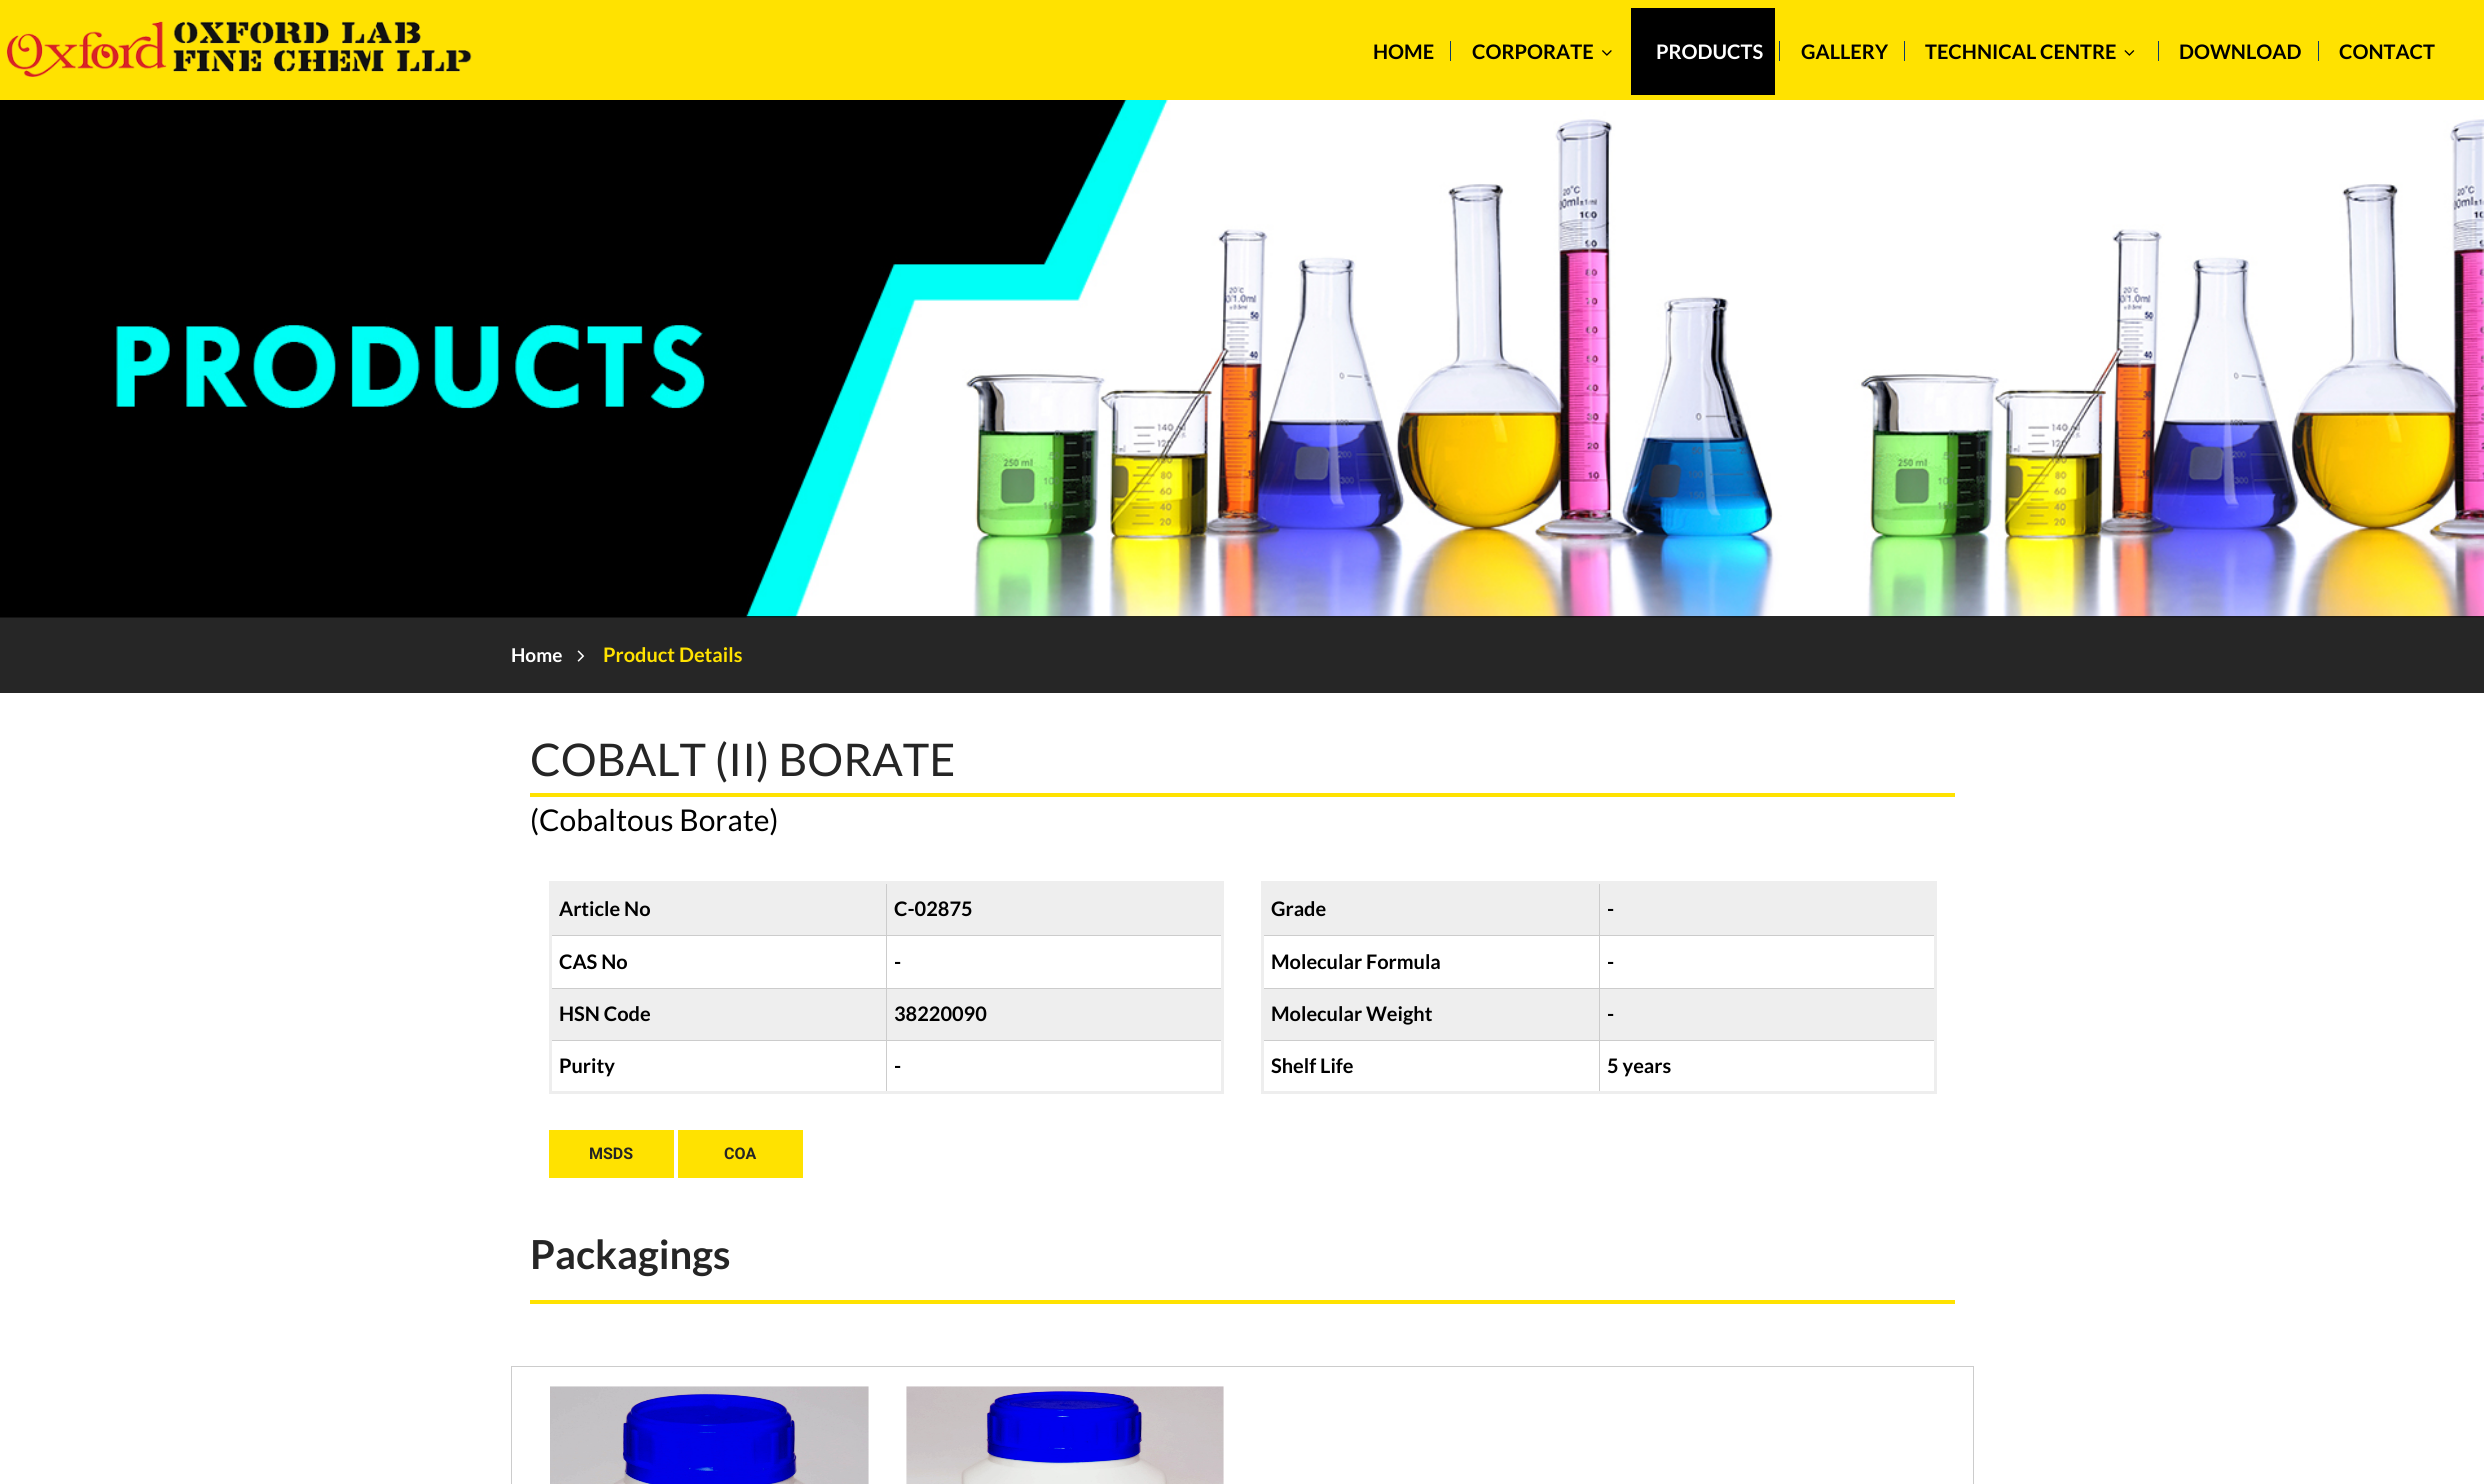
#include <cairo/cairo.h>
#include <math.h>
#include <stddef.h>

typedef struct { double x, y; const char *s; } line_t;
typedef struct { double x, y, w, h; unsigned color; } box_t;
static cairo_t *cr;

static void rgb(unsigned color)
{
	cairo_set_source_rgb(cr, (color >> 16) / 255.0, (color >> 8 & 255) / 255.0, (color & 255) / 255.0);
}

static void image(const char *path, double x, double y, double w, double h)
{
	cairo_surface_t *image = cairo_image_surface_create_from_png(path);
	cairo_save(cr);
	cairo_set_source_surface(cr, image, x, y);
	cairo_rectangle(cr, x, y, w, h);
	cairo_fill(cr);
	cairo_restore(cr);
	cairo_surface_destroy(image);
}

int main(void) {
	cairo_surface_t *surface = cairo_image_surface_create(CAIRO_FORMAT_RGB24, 2484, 1484);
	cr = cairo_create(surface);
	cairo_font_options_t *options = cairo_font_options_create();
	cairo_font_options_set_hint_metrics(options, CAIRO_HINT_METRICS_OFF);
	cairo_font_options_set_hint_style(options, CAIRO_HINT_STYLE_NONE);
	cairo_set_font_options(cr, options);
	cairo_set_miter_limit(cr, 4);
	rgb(0xffffff);
	cairo_paint(cr);
	rgb(0xffe200);
	cairo_rectangle(cr, 0, 0, 2484, 100);
	cairo_fill(cr);
	image("img/1.png", 6, 21, 466, 56);
	rgb(0x103d68);
	cairo_rectangle(cr, 1450, 41, 1, 20);
	cairo_fill(cr);
	image("img/2.png", 1602, 50, 10, 6);
	{
		static const box_t items[] = {
			{1631, 8, 144, 87, 0x000000},
			{1779, 41, 1, 20, 0x103d68},
			{1904, 41, 1, 20, 0x103d68},
		};
		for (size_t i = 0; i < sizeof items / sizeof *items; i++) {
			rgb(items[i].color);
			cairo_rectangle(cr, items[i].x, items[i].y, items[i].w, items[i].h);
			cairo_fill(cr);
		}
	}
	image("img/3.png", 2124, 50, 11, 6);
	cairo_rectangle(cr, 2158, 41, 1, 20);
	cairo_fill(cr);
	cairo_rectangle(cr, 2318, 41, 1, 20);
	cairo_fill(cr);
	image("img/4.png", 0, 100, 2484, 518);
	cairo_set_source_rgba(cr, 0, 0, 0, 0.85);
	cairo_rectangle(cr, 0, 616, 2484, 77);
	cairo_fill(cr);
	image("img/5.png", 577, 650, 8, 12);
	{
		static const box_t items[] = {
			{530, 793, 1425, 4, 0xffe200},
			{552, 884, 669, 51, 0xeeeeee},
			{886, 935, 338, 1, 0xcccccc},
			{886, 988, 338, 1, 0xcccccc},
			{552, 989, 669, 51, 0xeeeeee},
			{886, 1040, 338, 1, 0xcccccc},
			{886, 1040, 1, 54, 0xcccccc},
			{550, 1040, 338, 1, 0xcccccc},
			{886, 988, 1, 53, 0xcccccc},
			{550, 988, 338, 1, 0xcccccc},
			{886, 935, 1, 54, 0xcccccc},
			{550, 935, 338, 1, 0xcccccc},
			{886, 883, 1, 53, 0xcccccc},
			{549, 881, 675, 3, 0xeeeeee},
			{1221, 881, 3, 213, 0xeeeeee},
			{549, 1091, 675, 3, 0xeeeeee},
			{549, 881, 3, 213, 0xeeeeee},
			{1264, 884, 670, 51, 0xeeeeee},
			{1599, 935, 337, 1, 0xcccccc},
			{1599, 988, 337, 1, 0xcccccc},
			{1264, 989, 670, 51, 0xeeeeee},
			{1599, 1040, 337, 1, 0xcccccc},
			{1599, 1040, 1, 54, 0xcccccc},
			{1263, 1040, 337, 1, 0xcccccc},
			{1599, 988, 1, 53, 0xcccccc},
			{1263, 988, 337, 1, 0xcccccc},
			{1599, 935, 1, 54, 0xcccccc},
			{1263, 935, 337, 1, 0xcccccc},
			{1599, 883, 1, 53, 0xcccccc},
			{1261, 881, 675, 3, 0xeeeeee},
			{1934, 881, 3, 213, 0xeeeeee},
			{1261, 1091, 675, 3, 0xeeeeee},
			{1261, 881, 3, 213, 0xeeeeee},
			{549, 1130, 125, 48, 0xffe200},
			{678, 1130, 125, 48, 0xffe200},
			{530, 1300, 1425, 4, 0xffe200},
		};
		for (size_t i = 0; i < sizeof items / sizeof *items; i++) {
			rgb(items[i].color);
			cairo_rectangle(cr, items[i].x, items[i].y, items[i].w, items[i].h);
			cairo_fill(cr);
		}
	}
	cairo_rectangle(cr, 511.5, 1366.5, 1462, 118);
	rgb(0xcccccc);
	cairo_set_line_width(cr, 1);
	cairo_stroke(cr);
	image("img/6.png", 550, 1386, 319, 98);
	image("img/7.png", 906, 1386, 318, 98);
	cairo_select_font_face(cr, "Lato", CAIRO_FONT_SLANT_NORMAL, CAIRO_FONT_WEIGHT_BOLD);
	cairo_set_font_size(cr, 20);
	rgb(0x000000);
	cairo_move_to(cr, 1373, 59);
	cairo_show_text(cr, "HOME");
	cairo_move_to(cr, 1472, 59);
	cairo_show_text(cr, "CORPORATE");
	rgb(0xffffff);
	cairo_move_to(cr, 1656, 59);
	cairo_show_text(cr, "PRODUCTS");
	rgb(0x000000);
	{
		static const line_t items[] = {
			{1801, 59, "GALLERY"},
			{1925, 59, "TECHNICAL CENTRE"},
			{2179, 59, "DOWNLOAD"},
			{2339, 59, "CONTACT"},
		};
		for (size_t i = 0; i < sizeof items / sizeof *items; i++) {
			cairo_move_to(cr, items[i].x, items[i].y);
			cairo_show_text(cr, items[i].s);
		}
	}
	cairo_set_font_size(cr, 19);
	rgb(0xffffff);
	cairo_move_to(cr, 511, 662);
	cairo_show_text(cr, "Home");
	cairo_set_font_size(cr, 20);
	rgb(0xffe200);
	cairo_move_to(cr, 603, 662);
	cairo_show_text(cr, "Product Details");
	cairo_select_font_face(cr, "Lato", CAIRO_FONT_SLANT_NORMAL, CAIRO_FONT_WEIGHT_NORMAL);
	cairo_set_font_size(cr, 45);
	rgb(0x252525);
	cairo_move_to(cr, 530, 776);
	cairo_show_text(cr, "COBALT (II) BORATE");
	cairo_set_font_size(cr, 30);
	rgb(0x000000);
	cairo_move_to(cr, 530, 831);
	cairo_show_text(cr, "(Cobaltous Borate)");
	cairo_select_font_face(cr, "Lato", CAIRO_FONT_SLANT_NORMAL, CAIRO_FONT_WEIGHT_BOLD);
	cairo_set_font_size(cr, 20);
	{
		static const line_t items[] = {
			{559, 916, "Article No"},
			{894, 916, "C-02875"},
			{559, 969, "CAS No"},
			{894, 969, "-"},
			{559, 1021, "HSN Code"},
			{894, 1021, "38220090"},
			{559, 1073, "Purity"},
			{894, 1073, "-"},
			{1271, 916, "Grade"},
			{1607, 916, "-"},
			{1271, 969, "Molecular Formula"},
			{1607, 969, "-"},
			{1271, 1021, "Molecular Weight"},
			{1607, 1021, "-"},
			{1271, 1073, "Shelf Life"},
			{1607, 1073, "5 years"},
		};
		for (size_t i = 0; i < sizeof items / sizeof *items; i++) {
			cairo_move_to(cr, items[i].x, items[i].y);
			cairo_show_text(cr, items[i].s);
		}
	}
	cairo_select_font_face(cr, "Roboto", CAIRO_FONT_SLANT_NORMAL, CAIRO_FONT_WEIGHT_BOLD);
	cairo_set_font_size(cr, 16);
	rgb(0x252525);
	cairo_move_to(cr, 589, 1159);
	cairo_show_text(cr, "MSDS");
	cairo_move_to(cr, 724, 1159);
	cairo_show_text(cr, "COA");
	cairo_select_font_face(cr, "Lato", CAIRO_FONT_SLANT_NORMAL, CAIRO_FONT_WEIGHT_BOLD);
	cairo_set_font_size(cr, 40);
	cairo_move_to(cr, 530, 1269);
	cairo_show_text(cr, "Packagings");
	cairo_surface_write_to_png(surface, "page.png");
	cairo_font_options_destroy(options);
	cairo_destroy(cr);
	cairo_surface_destroy(surface);
	return 0;
}
